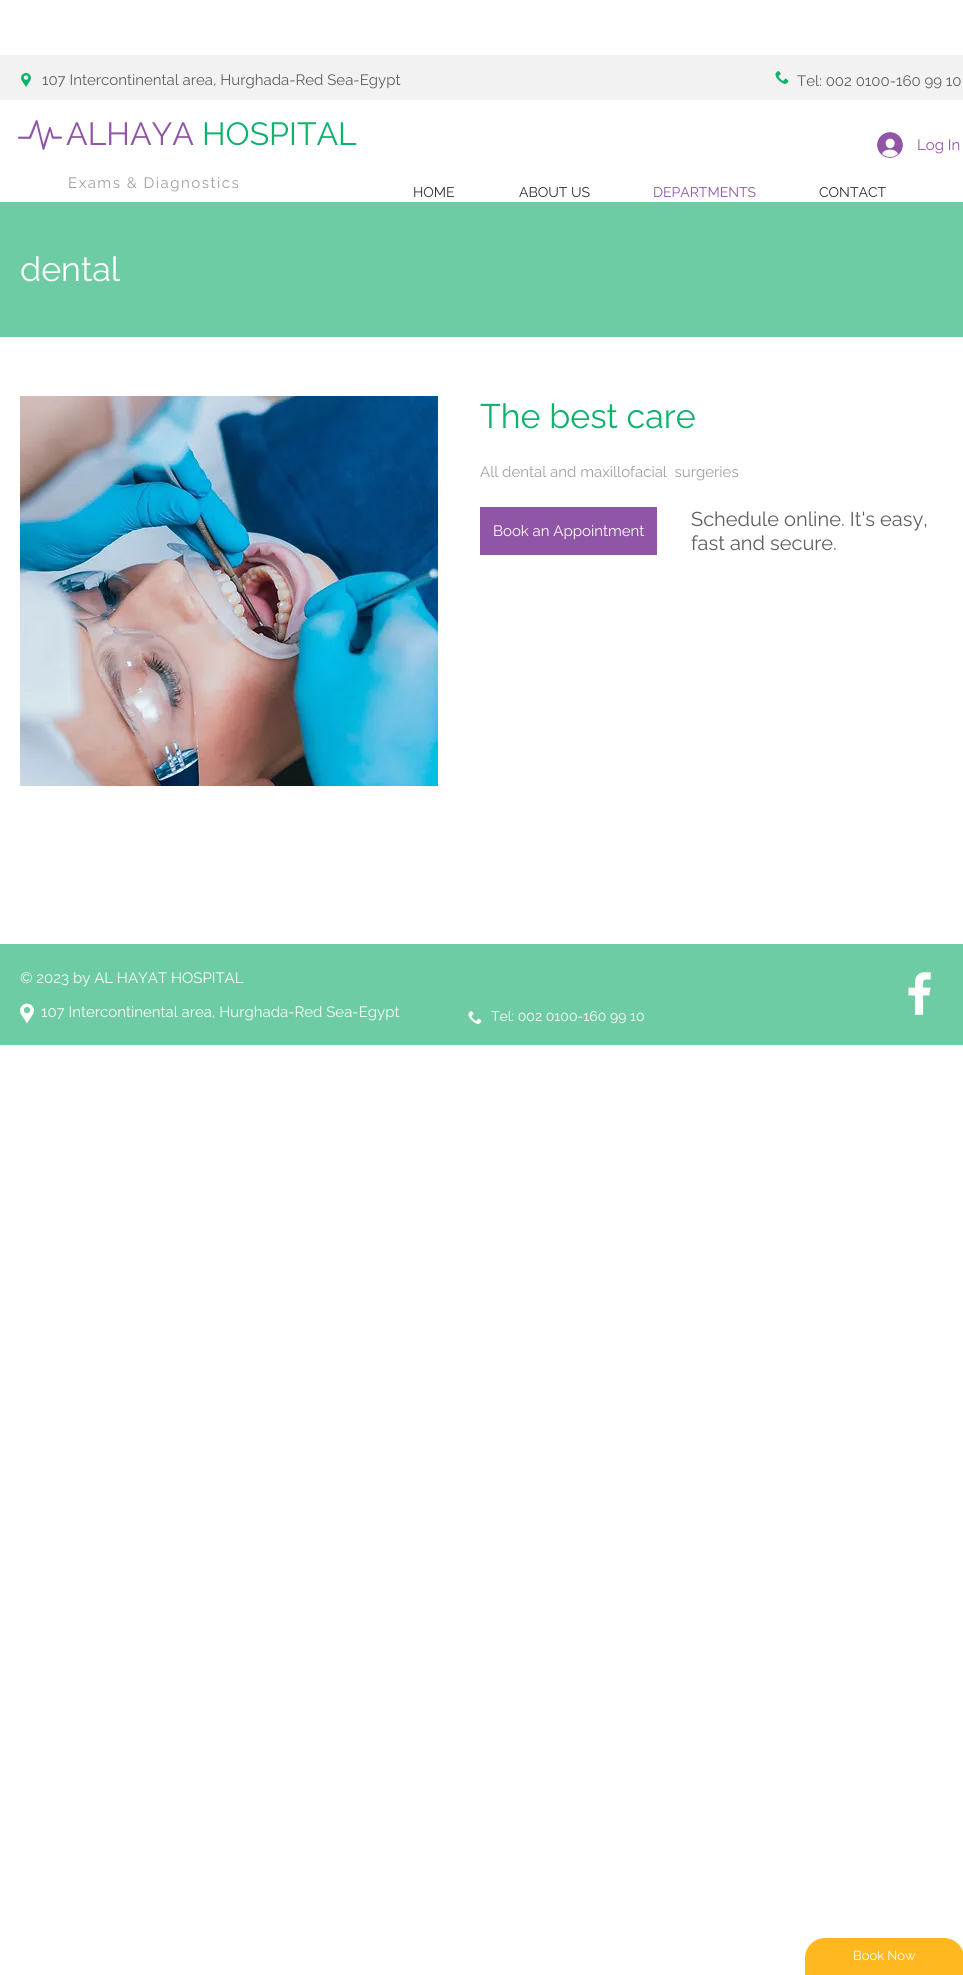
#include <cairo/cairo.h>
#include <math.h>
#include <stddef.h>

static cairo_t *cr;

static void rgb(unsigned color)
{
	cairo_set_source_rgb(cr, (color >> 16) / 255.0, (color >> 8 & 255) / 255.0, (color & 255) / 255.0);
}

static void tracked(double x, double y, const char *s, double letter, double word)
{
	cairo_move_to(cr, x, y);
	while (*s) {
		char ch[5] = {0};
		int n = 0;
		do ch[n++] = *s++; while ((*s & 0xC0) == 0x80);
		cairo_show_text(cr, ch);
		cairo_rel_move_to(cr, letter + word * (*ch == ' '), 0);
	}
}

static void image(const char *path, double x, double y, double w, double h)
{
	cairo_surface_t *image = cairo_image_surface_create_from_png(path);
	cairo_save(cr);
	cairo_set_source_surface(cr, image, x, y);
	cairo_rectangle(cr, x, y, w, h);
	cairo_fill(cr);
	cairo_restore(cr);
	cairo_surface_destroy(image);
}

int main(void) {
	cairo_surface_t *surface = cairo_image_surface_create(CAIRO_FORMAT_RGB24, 963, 1975);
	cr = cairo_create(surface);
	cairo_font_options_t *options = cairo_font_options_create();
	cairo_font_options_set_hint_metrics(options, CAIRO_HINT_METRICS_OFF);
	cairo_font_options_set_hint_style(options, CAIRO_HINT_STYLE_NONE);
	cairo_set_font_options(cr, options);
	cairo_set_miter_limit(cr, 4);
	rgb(0xffffff);
	cairo_paint(cr);
	rgb(0xf2f2f2);
	cairo_rectangle(cr, 0, 55, 963, 45);
	cairo_fill(cr);
	image("img/1.png", 21, 73, 10, 14);
	image("img/2.png", 775, 71, 14, 13);
	image("img/3.png", 18, 120, 44, 30);
	image("img/4.png", 877, 132, 26, 26);
	rgb(0x6dcca3);
	cairo_rectangle(cr, 0, 202, 963, 135);
	cairo_fill(cr);
	image("img/5.png", 20, 396, 418, 390);
	rgb(0x9155a7);
	cairo_rectangle(cr, 480, 507, 177, 48);
	cairo_fill(cr);
	rgb(0x6dcca3);
	cairo_rectangle(cr, 0, 944, 963, 101);
	cairo_fill(cr);
	image("img/6.png", 908, 972, 23, 43);
	image("img/7.png", 20, 1003, 14, 21);
	image("img/8.png", 468, 1011, 14, 13);
	rgb(0xffb81f);
	cairo_new_path(cr);
	cairo_move_to(cr, 825, 1938);
	cairo_line_to(cr, 944, 1938);
	cairo_curve_to(cr, 955, 1938, 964, 1947, 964, 1958);
	cairo_line_to(cr, 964, 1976);
	cairo_line_to(cr, 805, 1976);
	cairo_line_to(cr, 805, 1958);
	cairo_curve_to(cr, 805, 1947, 814, 1938, 825, 1938);
	cairo_close_path(cr);
	cairo_fill(cr);
	cairo_select_font_face(cr, "Raleway", CAIRO_FONT_SLANT_NORMAL, CAIRO_FONT_WEIGHT_NORMAL);
	cairo_set_font_size(cr, 15);
	rgb(0x605e5e);
	cairo_move_to(cr, 42, 85);
	cairo_show_text(cr, "107 Intercontinental area, Hurghada-Red Sea-Egypt");
	cairo_move_to(cr, 797, 86);
	cairo_show_text(cr, "Tel: 002 0100-160 99 10");
	cairo_set_font_size(cr, 32);
	rgb(0x9155a7);
	cairo_move_to(cr, 66, 145);
	cairo_show_text(cr, "ALHAYA");
	rgb(0x0db26b);
	cairo_move_to(cr, 202, 145);
	cairo_show_text(cr, "HOSPITAL");
	cairo_set_font_size(cr, 15);
	rgb(0x9155a7);
	cairo_move_to(cr, 917, 150);
	cairo_show_text(cr, "Log In");
	rgb(0xa0a09f);
	tracked(68, 188, "Exams & Diagnostics", 1.5, 0);
	cairo_set_font_size(cr, 14);
	rgb(0x2f2e2e);
	cairo_move_to(cr, 413, 197);
	cairo_show_text(cr, "HOME");
	cairo_move_to(cr, 519, 197);
	cairo_show_text(cr, "ABOUT US");
	rgb(0x9155a7);
	cairo_move_to(cr, 653, 197);
	cairo_show_text(cr, "DEPARTMENTS");
	rgb(0x2f2e2e);
	cairo_move_to(cr, 819, 197);
	cairo_show_text(cr, "CONTACT");
	cairo_set_font_size(cr, 34);
	rgb(0xffffff);
	cairo_move_to(cr, 20, 281);
	cairo_show_text(cr, "dental");
	rgb(0x0db26b);
	cairo_move_to(cr, 480, 428);
	cairo_show_text(cr, "The best care");
	cairo_set_font_size(cr, 15);
	rgb(0xa0a09f);
	cairo_move_to(cr, 480, 477);
	cairo_show_text(cr, "All dental and maxillofacial  surgeries");
	rgb(0xffffff);
	cairo_move_to(cr, 493, 536);
	cairo_show_text(cr, "Book an Appointment");
	cairo_set_font_size(cr, 20);
	rgb(0x605e5e);
	cairo_move_to(cr, 691, 526);
	cairo_show_text(cr, "Schedule online. It's easy,");
	cairo_move_to(cr, 691, 550);
	cairo_show_text(cr, "fast and secure.");
	cairo_set_font_size(cr, 15);
	rgb(0xffffff);
	cairo_move_to(cr, 20, 983);
	cairo_show_text(cr, "© 2023 by AL HAYAT HOSPITAL");
	cairo_move_to(cr, 41, 1017);
	cairo_show_text(cr, "107 Intercontinental area, Hurghada-Red Sea-Egypt");
	cairo_set_font_size(cr, 14);
	cairo_move_to(cr, 491, 1021);
	cairo_show_text(cr, "Tel: 002 0100-160 99 10");
	cairo_set_font_size(cr, 13);
	cairo_move_to(cr, 853, 1960);
	cairo_show_text(cr, "Book Now");
	cairo_surface_write_to_png(surface, "page.png");
	cairo_font_options_destroy(options);
	cairo_destroy(cr);
	cairo_surface_destroy(surface);
	return 0;
}
